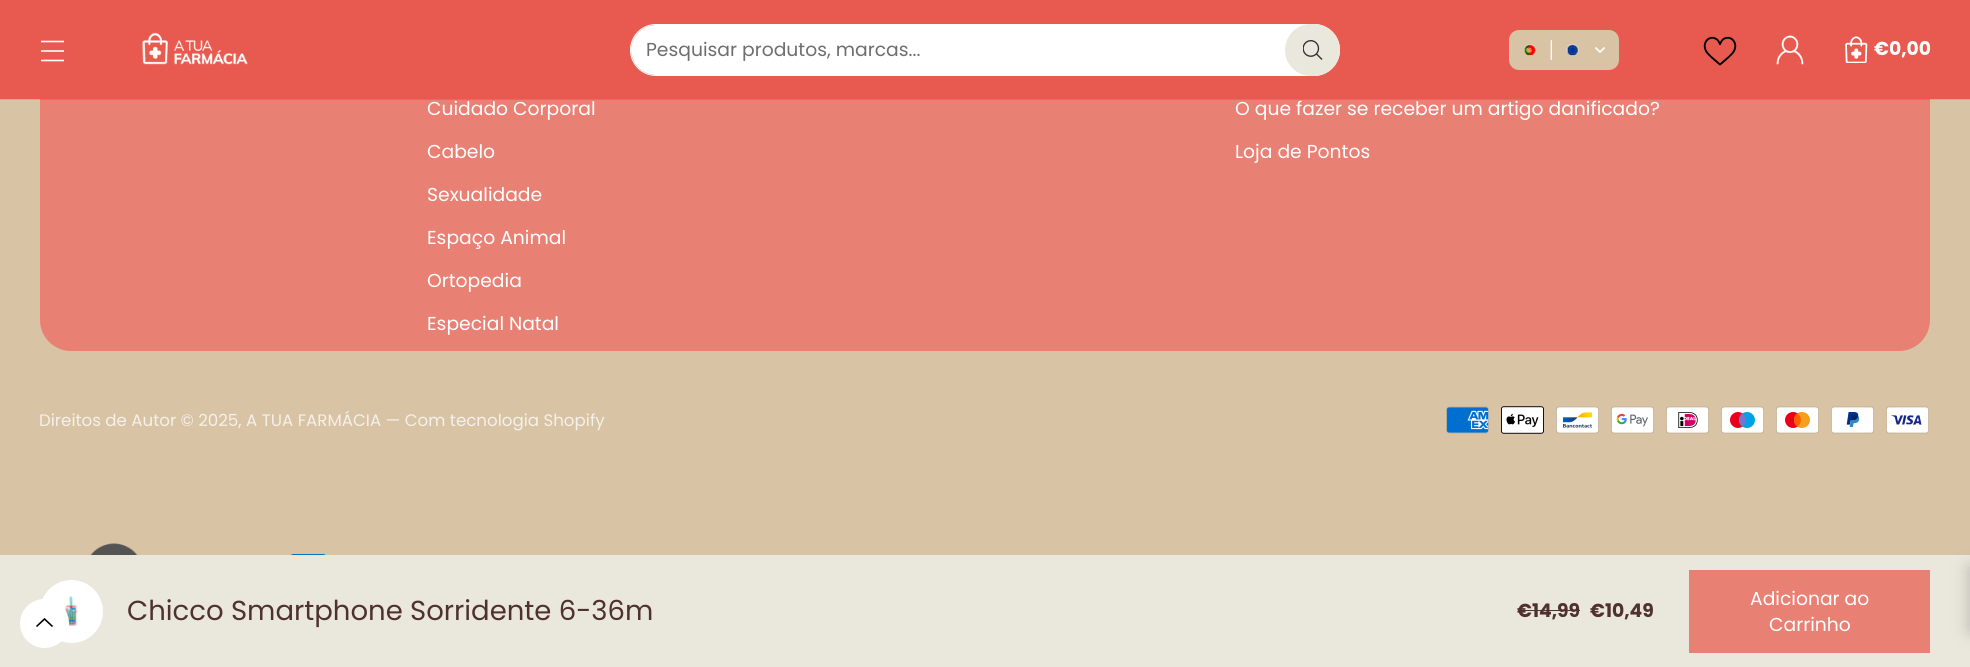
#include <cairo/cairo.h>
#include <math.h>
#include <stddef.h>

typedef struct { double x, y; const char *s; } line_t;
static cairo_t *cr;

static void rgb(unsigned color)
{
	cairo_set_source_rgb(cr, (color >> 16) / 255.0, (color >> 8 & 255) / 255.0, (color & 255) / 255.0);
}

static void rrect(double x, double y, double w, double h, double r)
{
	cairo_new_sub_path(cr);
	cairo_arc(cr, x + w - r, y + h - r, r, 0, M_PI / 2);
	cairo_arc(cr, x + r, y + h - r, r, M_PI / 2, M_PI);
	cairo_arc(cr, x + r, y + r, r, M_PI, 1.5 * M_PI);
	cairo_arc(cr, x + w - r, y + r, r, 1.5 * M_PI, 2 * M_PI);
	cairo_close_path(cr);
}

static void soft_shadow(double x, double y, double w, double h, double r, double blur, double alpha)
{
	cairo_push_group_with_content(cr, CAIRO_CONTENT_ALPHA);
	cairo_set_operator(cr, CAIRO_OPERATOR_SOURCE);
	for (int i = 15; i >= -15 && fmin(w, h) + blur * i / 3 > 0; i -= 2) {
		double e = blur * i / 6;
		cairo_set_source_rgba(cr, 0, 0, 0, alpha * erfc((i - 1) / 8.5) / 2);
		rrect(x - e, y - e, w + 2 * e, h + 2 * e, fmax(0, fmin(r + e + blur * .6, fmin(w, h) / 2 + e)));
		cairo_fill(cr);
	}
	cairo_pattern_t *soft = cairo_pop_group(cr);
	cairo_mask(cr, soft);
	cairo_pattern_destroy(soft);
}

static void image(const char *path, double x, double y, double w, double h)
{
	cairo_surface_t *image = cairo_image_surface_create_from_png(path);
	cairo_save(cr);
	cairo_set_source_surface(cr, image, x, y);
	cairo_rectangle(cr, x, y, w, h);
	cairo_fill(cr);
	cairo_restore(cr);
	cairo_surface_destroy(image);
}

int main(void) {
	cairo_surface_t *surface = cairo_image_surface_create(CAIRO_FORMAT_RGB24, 1970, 667);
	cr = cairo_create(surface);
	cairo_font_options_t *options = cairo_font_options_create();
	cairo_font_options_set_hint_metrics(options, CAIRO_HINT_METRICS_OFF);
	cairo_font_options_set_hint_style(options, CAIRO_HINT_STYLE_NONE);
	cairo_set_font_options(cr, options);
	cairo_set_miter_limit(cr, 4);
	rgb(0xd8c3a5);
	cairo_paint(cr);
	rgb(0xe98074);
	rrect(40, -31, 1890, 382, 31);
	cairo_fill(cr);
	cairo_rectangle(cr, -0.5, -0.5, 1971, 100);
	cairo_set_source_rgba(cr, 0, 0, 0, 0.1);
	cairo_set_line_width(cr, 1);
	cairo_stroke(cr);
	rgb(0xe85a4f);
	cairo_rectangle(cr, 0, 0, 1970, 99);
	cairo_fill(cr);
	cairo_new_path(cr);
	cairo_move_to(cr, 41, 51);
	cairo_line_to(cr, 64, 51);
	cairo_move_to(cr, 41, 41.5);
	cairo_line_to(cr, 64, 41.5);
	cairo_move_to(cr, 41, 60.5);
	cairo_line_to(cr, 64, 60.5);
	rgb(0xffffff);
	cairo_set_line_width(cr, 1.6);
	cairo_stroke(cr);
	image("img/1.png", 142, 32, 106, 33);
	rrect(630.5, 24.5, 709, 51, 25.5);
	cairo_set_line_width(cr, 1);
	cairo_stroke(cr);
	rrect(631, 25, 708, 50, 25);
	cairo_fill(cr);
	rgb(0xeae7dc);
	rrect(1285, 24, 55, 52, 26);
	cairo_fill(cr);
	image("img/2.png", 1303, 40, 20, 20);
	rgb(0xd8c3a5);
	rrect(1509, 30, 110, 40, 10);
	cairo_fill(cr);
	rrect(1524.4, 44.4, 11.2, 10.2, 5.1);
	rgb(0xddd3c5);
	cairo_set_line_width(cr, 0.8);
	cairo_stroke(cr);
	image("img/3.png", 1524, 45, 12, 11);
	image("img/4.png", 1550, 40, 2, 20);
	rrect(1566.4, 44.4, 12.2, 10.2, 5.1);
	cairo_stroke(cr);
	image("img/5.png", 1567, 45, 11, 11);
	image("img/6.png", 1595, 47, 10, 6);
	image("img/7.png", 1703, 36, 34, 30);
	image("img/8.png", 1776, 35, 28, 30);
	image("img/9.png", 1845, 36, 23, 27);
	image("img/10.png", 1446, 406, 43, 28);
	image("img/11.png", 1501, 406, 43, 28);
	image("img/12.png", 1556, 406, 43, 28);
	image("img/13.png", 1611, 406, 43, 28);
	image("img/14.png", 1666, 406, 43, 28);
	image("img/15.png", 1721, 406, 43, 28);
	image("img/16.png", 1776, 406, 43, 28);
	image("img/17.png", 1831, 406, 43, 28);
	image("img/18.png", 1886, 406, 43, 28);
	image("img/19.png", 90, 543, 48, 12);
	image("img/20.png", 290, 554, 36, 1);
	rgb(0xeae7dc);
	cairo_rectangle(cr, 0, 555, 1970, 112);
	cairo_fill(cr);
	rgb(0xffffff);
	cairo_arc(cr, 71.5, 611.5, 31.5, 0, 2 * M_PI);
	cairo_fill(cr);
	image("img/21.png", 65, 596, 13, 30);
	cairo_arc(cr, 44.5, 623.5, 24.5, 0, 2 * M_PI);
	cairo_fill(cr);
	cairo_new_path(cr);
	cairo_move_to(cr, 52.5, 626.5);
	cairo_line_to(cr, 44.5, 619);
	cairo_line_to(cr, 36.5, 626.5);
	rgb(0x000000);
	cairo_set_line_width(cr, 1.6);
	cairo_stroke(cr);
	rgb(0x4f3130);
	cairo_rectangle(cr, 1518, 610, 62, 1);
	cairo_fill(cr);
	rgb(0xe98074);
	cairo_rectangle(cr, 1689, 570, 241, 83);
	cairo_fill(cr);
	rgb(0x757575);
	soft_shadow(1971, 568, 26, 62, 0, 9, 0.5);
	cairo_select_font_face(cr, "Poppins", CAIRO_FONT_SLANT_NORMAL, CAIRO_FONT_WEIGHT_NORMAL);
	cairo_set_font_size(cr, 18.75);
	rgb(0x6e6e6e);
	cairo_move_to(cr, 646, 56);
	cairo_show_text(cr, "Pesquisar produtos, marcas...");
	cairo_select_font_face(cr, "Poppins", CAIRO_FONT_SLANT_NORMAL, CAIRO_FONT_WEIGHT_BOLD);
	rgb(0xffffff);
	cairo_move_to(cr, 1874, 55);
	cairo_show_text(cr, "€0,00");
	cairo_select_font_face(cr, "Poppins", CAIRO_FONT_SLANT_NORMAL, CAIRO_FONT_WEIGHT_NORMAL);
	{
		static const line_t items[] = {
			{427, 115, "Cuidado Corporal"},
			{427, 158, "Cabelo"},
			{427, 201, "Sexualidade"},
			{427, 244, "Espaço Animal"},
			{427, 287, "Ortopedia"},
			{427, 330, "Especial Natal"},
			{1235, 115, "O que fazer se receber um artigo danificado?"},
			{1235, 158, "Loja de Pontos"},
		};
		for (size_t i = 0; i < sizeof items / sizeof *items; i++) {
			cairo_move_to(cr, items[i].x, items[i].y);
			cairo_show_text(cr, items[i].s);
		}
	}
	cairo_set_font_size(cr, 16.65);
	rgb(0xf5f0e9);
	cairo_move_to(cr, 39, 426);
	cairo_show_text(cr, "Direitos de Autor © 2025, A TUA FARMÁCIA — Com tecnologia Shopify");
	cairo_set_font_size(cr, 27.5);
	rgb(0x4f3130);
	cairo_move_to(cr, 127, 620);
	cairo_show_text(cr, "Chicco Smartphone Sorridente 6-36m");
	cairo_select_font_face(cr, "Poppins", CAIRO_FONT_SLANT_NORMAL, CAIRO_FONT_WEIGHT_BOLD);
	cairo_set_font_size(cr, 18.75);
	cairo_move_to(cr, 1517, 617);
	cairo_show_text(cr, "€14,99");
	cairo_move_to(cr, 1590, 617);
	cairo_show_text(cr, "€10,49");
	cairo_select_font_face(cr, "Poppins", CAIRO_FONT_SLANT_NORMAL, CAIRO_FONT_WEIGHT_NORMAL);
	rgb(0xffffff);
	cairo_move_to(cr, 1750, 605);
	cairo_show_text(cr, "Adicionar ao");
	cairo_move_to(cr, 1769, 631);
	cairo_show_text(cr, "Carrinho");
	cairo_surface_write_to_png(surface, "page.png");
	cairo_font_options_destroy(options);
	cairo_destroy(cr);
	cairo_surface_destroy(surface);
	return 0;
}
